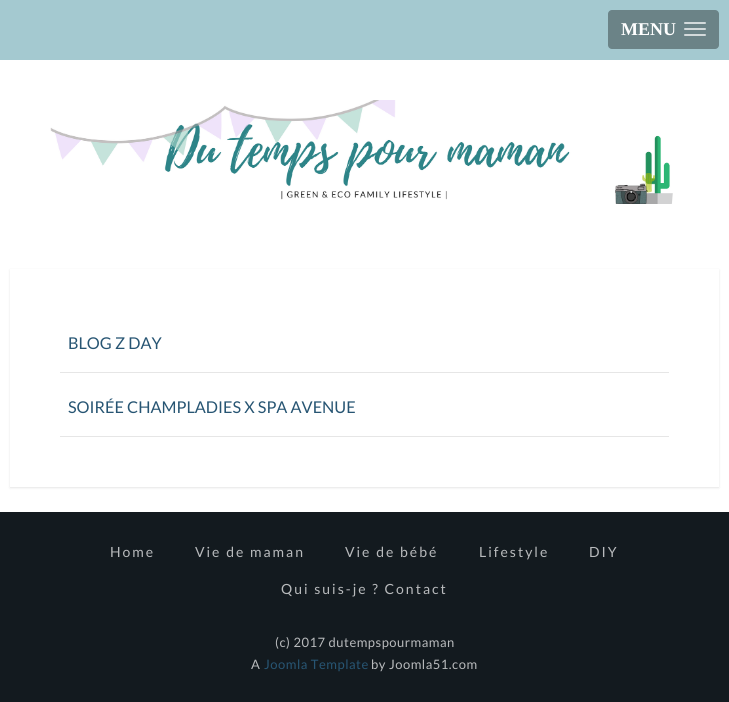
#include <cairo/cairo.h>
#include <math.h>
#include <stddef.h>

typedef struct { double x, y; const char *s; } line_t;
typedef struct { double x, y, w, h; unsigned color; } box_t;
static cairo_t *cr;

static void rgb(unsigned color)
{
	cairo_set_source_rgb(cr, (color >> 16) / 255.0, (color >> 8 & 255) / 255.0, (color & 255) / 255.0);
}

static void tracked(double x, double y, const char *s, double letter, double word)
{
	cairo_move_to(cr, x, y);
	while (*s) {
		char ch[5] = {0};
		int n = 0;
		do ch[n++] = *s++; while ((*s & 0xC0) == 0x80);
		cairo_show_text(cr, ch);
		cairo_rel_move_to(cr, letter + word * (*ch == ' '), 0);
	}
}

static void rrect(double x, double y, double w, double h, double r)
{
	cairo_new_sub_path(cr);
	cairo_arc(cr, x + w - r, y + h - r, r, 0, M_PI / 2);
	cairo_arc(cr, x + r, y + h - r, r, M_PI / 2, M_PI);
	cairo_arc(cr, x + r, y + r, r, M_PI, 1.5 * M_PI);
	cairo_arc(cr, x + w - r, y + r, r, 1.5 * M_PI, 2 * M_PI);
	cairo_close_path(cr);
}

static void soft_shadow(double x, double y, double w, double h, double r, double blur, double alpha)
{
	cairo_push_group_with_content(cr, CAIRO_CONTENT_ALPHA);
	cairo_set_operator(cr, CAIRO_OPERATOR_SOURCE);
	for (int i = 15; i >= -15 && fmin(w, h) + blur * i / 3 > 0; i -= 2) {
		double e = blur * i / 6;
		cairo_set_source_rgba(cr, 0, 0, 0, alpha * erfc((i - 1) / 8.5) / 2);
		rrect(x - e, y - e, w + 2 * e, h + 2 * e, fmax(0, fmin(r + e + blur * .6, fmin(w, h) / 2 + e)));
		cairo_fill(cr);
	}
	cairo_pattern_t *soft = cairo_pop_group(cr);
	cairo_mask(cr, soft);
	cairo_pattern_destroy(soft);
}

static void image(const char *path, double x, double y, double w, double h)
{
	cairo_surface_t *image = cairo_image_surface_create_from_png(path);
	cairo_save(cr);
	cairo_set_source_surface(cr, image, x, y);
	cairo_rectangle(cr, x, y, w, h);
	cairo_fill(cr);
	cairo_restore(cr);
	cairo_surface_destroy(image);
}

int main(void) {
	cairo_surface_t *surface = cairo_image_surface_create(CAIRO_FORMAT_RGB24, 729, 702);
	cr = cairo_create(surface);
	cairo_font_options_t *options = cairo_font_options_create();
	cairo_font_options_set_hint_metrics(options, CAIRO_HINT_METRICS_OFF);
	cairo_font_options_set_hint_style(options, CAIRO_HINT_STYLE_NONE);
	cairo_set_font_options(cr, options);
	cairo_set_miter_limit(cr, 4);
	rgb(0xffffff);
	cairo_paint(cr);
	rgb(0xa4c9d0);
	cairo_rectangle(cr, 0, 0, 729, 60);
	cairo_fill(cr);
	rgb(0x6b8387);
	rrect(608, 10, 111, 39, 4);
	cairo_fill(cr);
	rgb(0xd3dadb);
	rrect(684, 22, 22, 2, 1);
	cairo_fill(cr);
	rrect(684, 28, 22, 2, 1);
	cairo_fill(cr);
	rrect(684, 34, 22, 2, 1);
	cairo_fill(cr);
	image("img/1.png", 50, 100, 623, 104);
	cairo_save(cr);
	cairo_set_fill_rule(cr, CAIRO_FILL_RULE_EVEN_ODD);
	cairo_new_path(cr);
	cairo_move_to(cr, 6, 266);
	cairo_line_to(cr, 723, 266);
	cairo_line_to(cr, 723, 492);
	cairo_line_to(cr, 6, 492);
	cairo_close_path(cr);
	cairo_move_to(cr, 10, 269);
	cairo_line_to(cr, 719, 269);
	cairo_line_to(cr, 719, 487);
	cairo_line_to(cr, 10, 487);
	cairo_close_path(cr);
	cairo_clip(cr);
	rgb(0x000000);
	soft_shadow(10, 270, 709, 218, 0, 1, 0.1);
	cairo_restore(cr);
	{
		static const box_t items[] = {
			{60, 372, 609, 1, 0xe6e6e6},
			{60, 436, 609, 1, 0xe6e6e6},
			{0, 512, 729, 190, 0x131a1f},
		};
		for (size_t i = 0; i < sizeof items / sizeof *items; i++) {
			rgb(items[i].color);
			cairo_rectangle(cr, items[i].x, items[i].y, items[i].w, items[i].h);
			cairo_fill(cr);
		}
	}
	cairo_select_font_face(cr, "Liberation Serif", CAIRO_FONT_SLANT_NORMAL, CAIRO_FONT_WEIGHT_BOLD);
	cairo_set_font_size(cr, 18);
	rgb(0xffffff);
	cairo_move_to(cr, 621, 35);
	cairo_show_text(cr, "MENU");
	cairo_select_font_face(cr, "Lato", CAIRO_FONT_SLANT_NORMAL, CAIRO_FONT_WEIGHT_NORMAL);
	cairo_set_font_size(cr, 16.25);
	rgb(0x275573);
	cairo_move_to(cr, 68, 349);
	cairo_show_text(cr, "BLOG Z DAY");
	cairo_move_to(cr, 68, 413);
	cairo_show_text(cr, "SOIRÉE CHAMPLADIES X SPA AVENUE");
	cairo_set_font_size(cr, 14);
	rgb(0xb8babc);
	{
		static const line_t items[] = {
			{110, 557, "Home"},
			{195, 557, "Vie de maman"},
			{345, 557, "Vie de bébé"},
			{479, 557, "Lifestyle"},
			{589, 557, "DIY"},
			{281, 594, "Qui suis-je ? Contact"},
		};
		for (size_t i = 0; i < sizeof items / sizeof *items; i++) {
			tracked(items[i].x, items[i].y, items[i].s, 2, 0);
		}
	}
	cairo_set_font_size(cr, 13);
	tracked(275, 647, "(c) 2017 dutempspourmaman", 0.5, 0);
	tracked(251, 669, "A", 0.5, 0);
	rgb(0x275573);
	tracked(264, 669, "Joomla Template", 0.5, 0);
	rgb(0xb8babc);
	tracked(371, 669, "by Joomla51.com", 0.5, 0);
	cairo_surface_write_to_png(surface, "page.png");
	cairo_font_options_destroy(options);
	cairo_destroy(cr);
	cairo_surface_destroy(surface);
	return 0;
}
